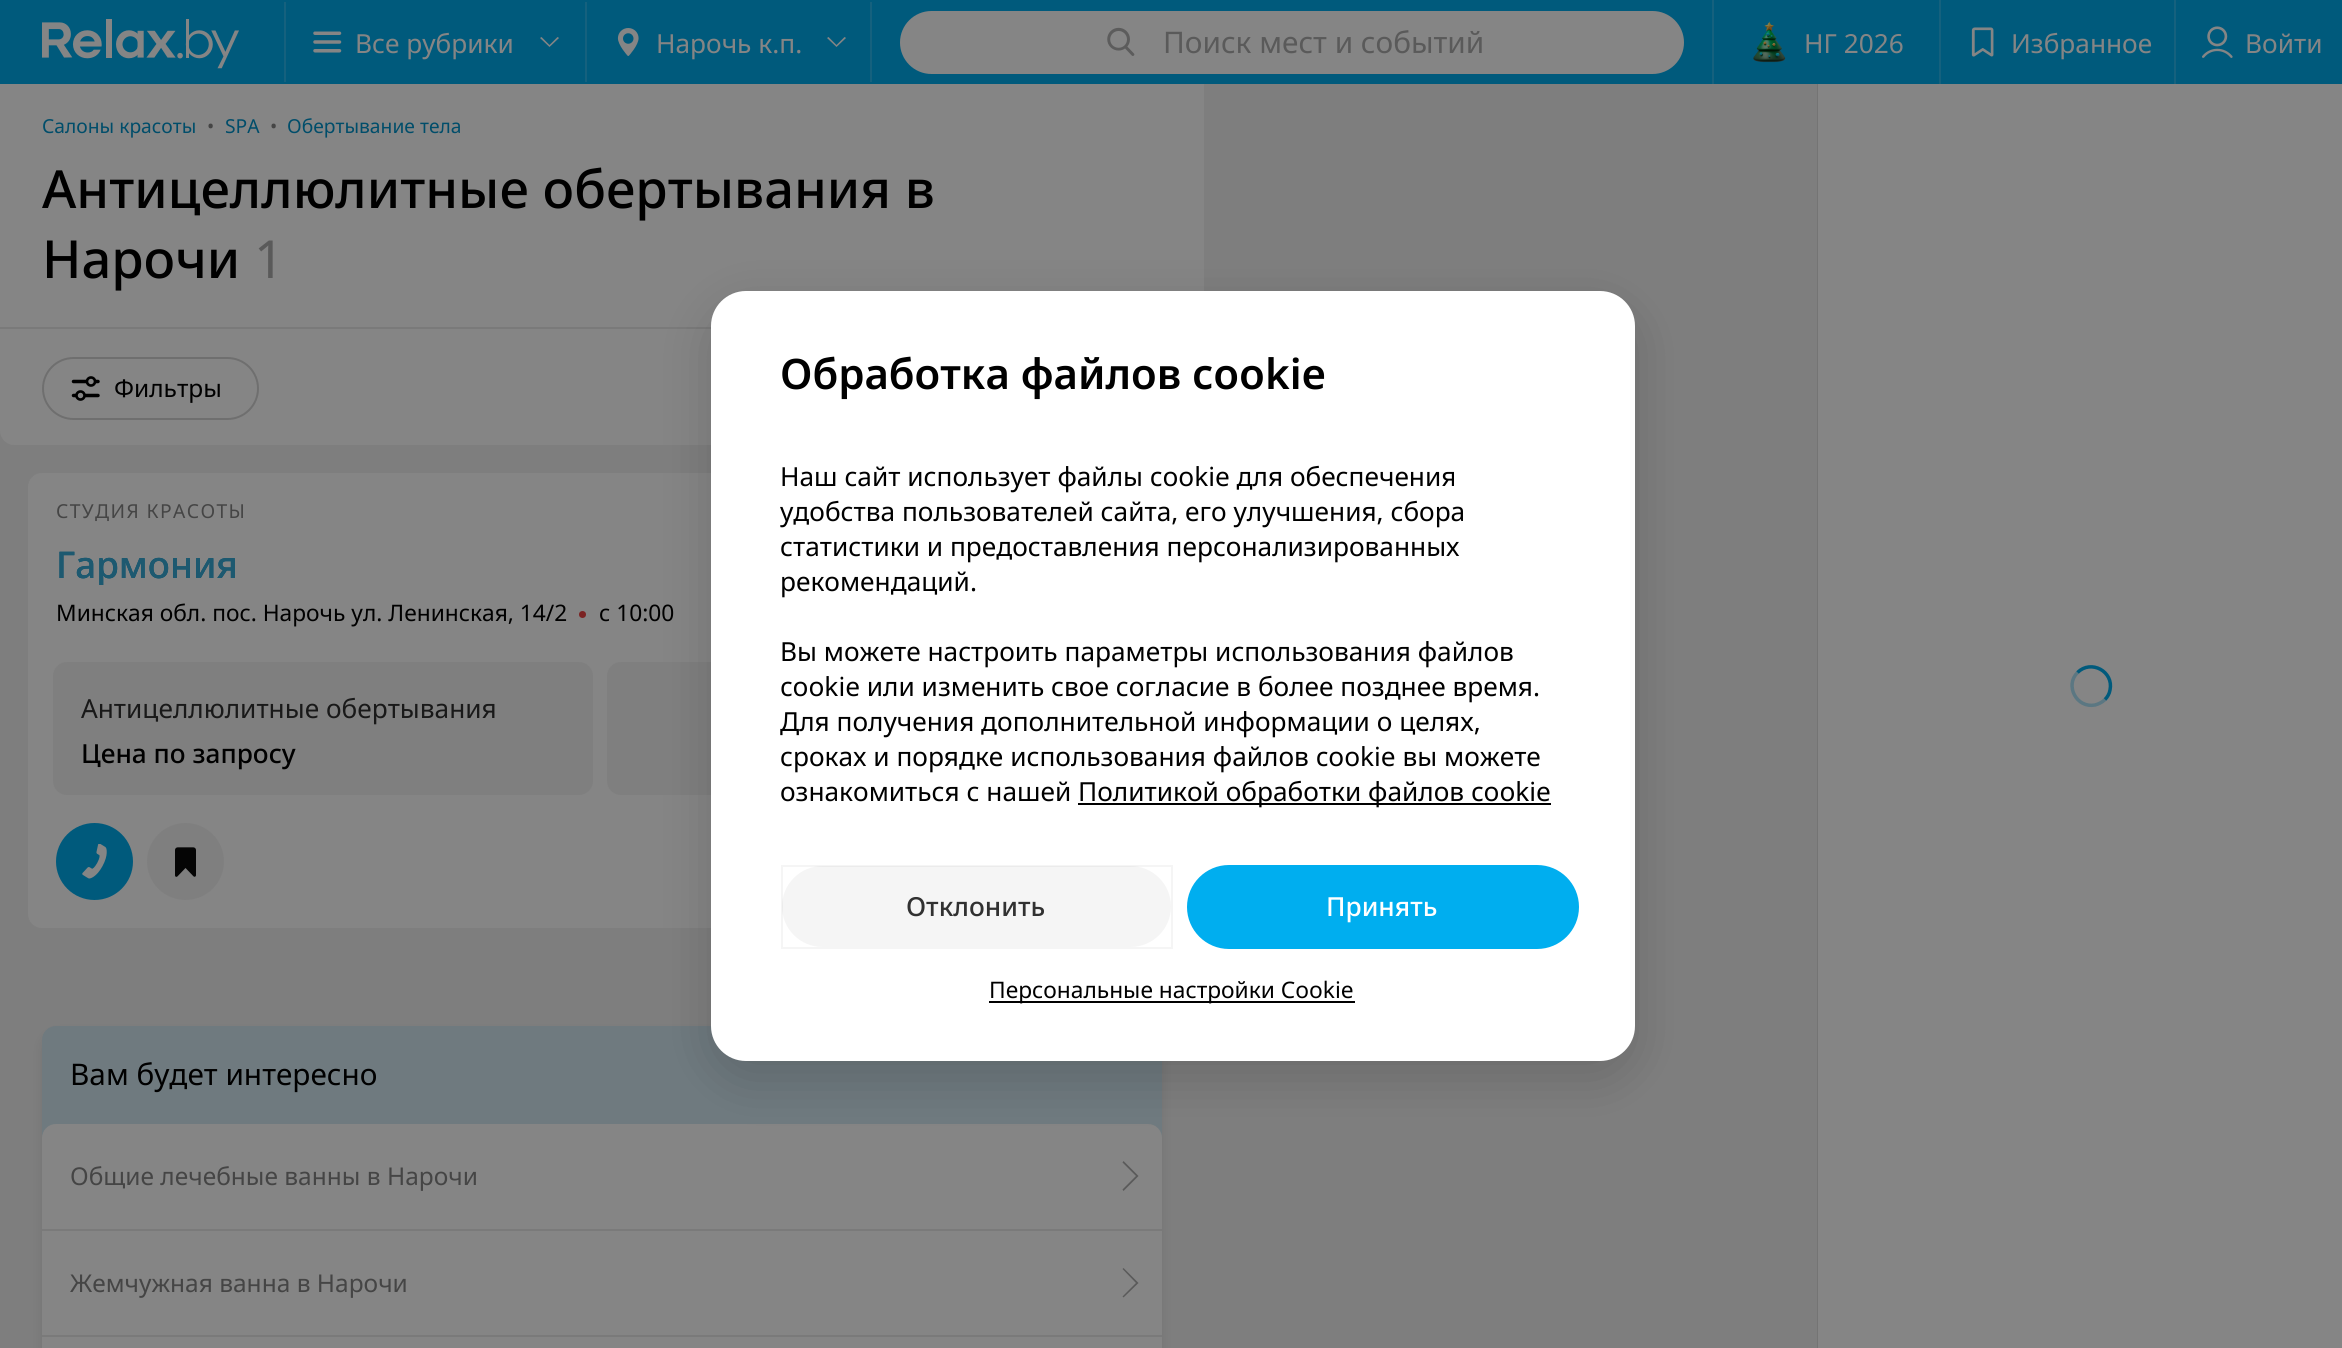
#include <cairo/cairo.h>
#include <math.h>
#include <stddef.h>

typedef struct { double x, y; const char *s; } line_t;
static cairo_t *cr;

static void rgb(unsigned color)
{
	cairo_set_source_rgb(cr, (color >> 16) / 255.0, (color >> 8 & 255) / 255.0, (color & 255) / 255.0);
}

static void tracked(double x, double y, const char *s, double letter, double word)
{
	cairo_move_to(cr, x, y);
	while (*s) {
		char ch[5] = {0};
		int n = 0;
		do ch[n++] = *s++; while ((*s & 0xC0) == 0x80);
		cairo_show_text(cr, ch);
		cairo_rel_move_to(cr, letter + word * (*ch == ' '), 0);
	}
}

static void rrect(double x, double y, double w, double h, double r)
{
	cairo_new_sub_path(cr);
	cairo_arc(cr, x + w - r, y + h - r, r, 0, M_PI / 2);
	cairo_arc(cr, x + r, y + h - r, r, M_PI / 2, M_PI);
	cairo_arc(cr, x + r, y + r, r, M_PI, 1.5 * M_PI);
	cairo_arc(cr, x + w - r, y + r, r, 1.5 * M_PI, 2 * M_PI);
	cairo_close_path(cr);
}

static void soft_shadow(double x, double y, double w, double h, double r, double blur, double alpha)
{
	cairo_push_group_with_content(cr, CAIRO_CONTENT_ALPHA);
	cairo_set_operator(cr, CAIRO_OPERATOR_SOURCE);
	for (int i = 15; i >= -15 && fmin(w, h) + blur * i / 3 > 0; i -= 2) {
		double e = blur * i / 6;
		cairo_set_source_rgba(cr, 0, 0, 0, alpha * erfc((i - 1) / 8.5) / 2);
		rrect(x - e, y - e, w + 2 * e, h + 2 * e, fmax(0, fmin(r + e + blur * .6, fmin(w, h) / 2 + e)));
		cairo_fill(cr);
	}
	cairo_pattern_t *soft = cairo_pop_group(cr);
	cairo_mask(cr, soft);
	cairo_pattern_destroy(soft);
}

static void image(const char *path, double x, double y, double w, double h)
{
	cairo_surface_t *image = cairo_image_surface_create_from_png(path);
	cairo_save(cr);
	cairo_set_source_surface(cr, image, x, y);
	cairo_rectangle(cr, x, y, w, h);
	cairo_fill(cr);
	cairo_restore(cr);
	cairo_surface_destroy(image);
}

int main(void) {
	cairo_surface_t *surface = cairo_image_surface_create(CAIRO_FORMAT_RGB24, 2342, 1348);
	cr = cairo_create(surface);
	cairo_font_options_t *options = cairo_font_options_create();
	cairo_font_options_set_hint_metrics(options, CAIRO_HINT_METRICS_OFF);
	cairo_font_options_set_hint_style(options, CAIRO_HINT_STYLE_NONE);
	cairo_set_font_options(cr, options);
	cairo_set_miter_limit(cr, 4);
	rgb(0x7e7e7e);
	cairo_paint(cr);
	cairo_rectangle(cr, 1818, -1, 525, 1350);
	rgb(0x747474);
	cairo_stroke(cr);
	rgb(0x858585);
	cairo_rectangle(cr, 1818, 84, 524, 1264);
	cairo_fill(cr);
	cairo_new_path(cr);
	cairo_move_to(cr, 2077.5, 672.5);
	cairo_curve_to(cr, 2091, 659, 2114, 671.5, 2110, 690);
	cairo_curve_to(cr, 2109.5, 693.5, 2107.5, 697, 2105, 699.5);
	rgb(0x005a7c);
	cairo_set_line_width(cr, 3.5);
	cairo_stroke(cr);
	cairo_new_path(cr);
	cairo_move_to(cr, 2105, 699.5);
	cairo_curve_to(cr, 2102, 702.5, 2098.5, 704, 2095, 705);
	cairo_curve_to(cr, 2076.5, 708.5, 2064.5, 685.5, 2077.5, 672.5);
	cairo_set_source_rgba(cr, 0, 0.353, 0.486, 0.32);
	cairo_stroke(cr);
	rgb(0x005a7c);
	cairo_rectangle(cr, 0, 0, 2342, 84);
	cairo_fill(cr);
	image("img/1.png", 42, 19, 197, 50);
	rgb(0x15617e);
	cairo_rectangle(cr, 585, 2, 2, 80);
	cairo_fill(cr);
	cairo_rectangle(cr, 284, 2, 2, 80);
	cairo_fill(cr);
	image("img/2.png", 313, 31, 29, 22);
	rgb(0x858585);
	cairo_new_path(cr);
	cairo_move_to(cr, 549.5, 47);
	cairo_line_to(cr, 540, 38);
	cairo_line_to(cr, 541.5, 37);
	cairo_line_to(cr, 549.5, 45);
	cairo_line_to(cr, 557.5, 37);
	cairo_line_to(cr, 559, 38);
	cairo_close_path(cr);
	cairo_fill(cr);
	image("img/3.png", 617, 28, 22, 28);
	cairo_new_path(cr);
	cairo_move_to(cr, 836.5, 47);
	cairo_line_to(cr, 827, 38);
	cairo_line_to(cr, 828.5, 37);
	cairo_line_to(cr, 836.5, 45);
	cairo_line_to(cr, 844.5, 37);
	cairo_line_to(cr, 846, 38);
	cairo_close_path(cr);
	cairo_fill(cr);
	rgb(0x15617e);
	cairo_rectangle(cr, 870, 2, 2, 80);
	cairo_fill(cr);
	rgb(0x858585);
	rrect(900, 11, 784, 63, 31.5);
	cairo_fill(cr);
	image("img/4.png", 1107, 27, 28, 29);
	rgb(0x15617e);
	cairo_rectangle(cr, 1712, 0, 2, 84);
	cairo_fill(cr);
	image("img/5.png", 1753, 21, 33, 42);
	cairo_rectangle(cr, 1939, 0, 2, 84);
	cairo_fill(cr);
	image("img/6.png", 1971, 27, 23, 30);
	cairo_rectangle(cr, 2174, 0, 2, 84);
	cairo_fill(cr);
	image("img/7.png", 2202, 26, 31, 32);
	rgb(0x858585);
	cairo_rectangle(cr, 0, 84, 1204, 243);
	cairo_fill(cr);
	rgb(0x7a7a7a);
	cairo_rectangle(cr, 0, 327, 711, 2);
	cairo_fill(cr);
	rgb(0x858585);
	cairo_new_path(cr);
	cairo_move_to(cr, 0, 329);
	cairo_line_to(cr, 1204, 329);
	cairo_line_to(cr, 1204, 431);
	cairo_curve_to(cr, 1204, 438.5, 1197.5, 445, 1190, 445);
	cairo_line_to(cr, 14, 445);
	cairo_curve_to(cr, 6.5, 445, 0, 438.5, 0, 431);
	cairo_close_path(cr);
	cairo_fill(cr);
	rrect(43, 358, 215, 61, 30.5);
	rgb(0x6f6f6f);
	cairo_set_line_width(cr, 2);
	cairo_stroke(cr);
	image("img/8.png", 71, 376, 29, 25);
	rgb(0x858585);
	rrect(28, 473, 1148, 455, 14);
	cairo_fill(cr);
	rgb(0x7b2323);
	cairo_arc(cr, 582.5, 614.5, 3.5, 0, 2 * M_PI);
	cairo_fill(cr);
	rgb(0x7f7f7f);
	rrect(53, 662, 540, 133, 14);
	cairo_fill(cr);
	rrect(607, 662, 541, 133, 14);
	cairo_fill(cr);
	rgb(0x005a7c);
	cairo_arc(cr, 94.5, 861.5, 38.5, 0, 2 * M_PI);
	cairo_fill(cr);
	image("img/9.png", 82, 844, 25, 35);
	rgb(0x7f7f7f);
	cairo_arc(cr, 185.5, 861.5, 38.5, 0, 2 * M_PI);
	cairo_fill(cr);
	image("img/10.png", 175, 847, 21, 30);
	rgb(0x000000);
	soft_shadow(42, 1033, 1120, 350, 14, 7, 0.08);
	rgb(0x6f7a7f);
	rrect(42, 1026, 1120, 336, 14);
	cairo_fill(cr);
	rgb(0x858585);
	rrect(42, 1124, 1120, 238, 14);
	cairo_fill(cr);
	rgb(0x7a7a7a);
	cairo_rectangle(cr, 42, 1229, 1120, 2);
	cairo_fill(cr);
	rgb(0x5a5a5a);
	cairo_new_path(cr);
	cairo_move_to(cr, 1123.5, 1161);
	cairo_line_to(cr, 1138.5, 1176);
	cairo_line_to(cr, 1136, 1176);
	cairo_line_to(cr, 1122.5, 1162.5);
	cairo_close_path(cr);
	cairo_move_to(cr, 1138.5, 1176);
	cairo_line_to(cr, 1123.5, 1191);
	cairo_line_to(cr, 1122.5, 1189.5);
	cairo_line_to(cr, 1136, 1176);
	cairo_close_path(cr);
	cairo_fill(cr);
	rgb(0x7a7a7a);
	cairo_rectangle(cr, 42, 1335, 1120, 2);
	cairo_fill(cr);
	rgb(0x5a5a5a);
	cairo_new_path(cr);
	cairo_move_to(cr, 1123.5, 1268);
	cairo_line_to(cr, 1138.5, 1283);
	cairo_line_to(cr, 1136, 1283);
	cairo_line_to(cr, 1122.5, 1269);
	cairo_close_path(cr);
	cairo_move_to(cr, 1138.5, 1283);
	cairo_line_to(cr, 1123.5, 1297.5);
	cairo_line_to(cr, 1122.5, 1296.5);
	cairo_line_to(cr, 1136, 1283);
	cairo_close_path(cr);
	cairo_fill(cr);
	rgb(0x000000);
	soft_shadow(711, 308, 924, 770, 35, 26, 0.16);
	rgb(0xffffff);
	rrect(711, 291, 924, 770, 35);
	cairo_fill(cr);
	rgb(0x000000);
	cairo_rectangle(cr, 1078, 803, 473, 2);
	cairo_fill(cr);
	rgb(0xf5f5f5);
	rrect(782, 866, 389, 81, 40.5);
	cairo_fill(cr);
	cairo_rectangle(cr, 782, 866, 390, 82);
	cairo_set_source_rgba(cr, 0, 0, 0, 0.04);
	cairo_stroke(cr);
	rgb(0x00aeef);
	rrect(1188, 866, 390, 82, 41);
	cairo_fill_preserve(cr);
	cairo_stroke(cr);
	rgb(0x000000);
	cairo_rectangle(cr, 989, 1001, 366, 2);
	cairo_fill(cr);
	cairo_select_font_face(cr, "Noto Sans", CAIRO_FONT_SLANT_NORMAL, CAIRO_FONT_WEIGHT_NORMAL);
	cairo_set_font_size(cr, 26.25);
	rgb(0x858585);
	cairo_move_to(cr, 355, 53);
	cairo_show_text(cr, "Все рубрики");
	cairo_move_to(cr, 656, 53);
	cairo_show_text(cr, "Нарочь к.п.");
	cairo_set_font_size(cr, 29.75);
	rgb(0x5a5a5a);
	cairo_move_to(cr, 1163, 53);
	cairo_show_text(cr, "Поиск мест и событий");
	cairo_set_font_size(cr, 26.25);
	rgb(0x858585);
	{
		static const line_t items[] = {
			{1804, 53, "НГ 2026"},
			{2011, 53, "Избранное"},
			{2245, 53, "Войти"},
		};
		for (size_t i = 0; i < sizeof items / sizeof *items; i++) {
			cairo_move_to(cr, items[i].x, items[i].y);
			cairo_show_text(cr, items[i].s);
		}
	}
	cairo_set_font_size(cr, 19.25);
	rgb(0x004d6a);
	cairo_move_to(cr, 42, 133);
	cairo_show_text(cr, "Салоны красоты");
	rgb(0x454545);
	cairo_move_to(cr, 207, 133);
	cairo_show_text(cr, "•");
	rgb(0x004d6a);
	cairo_move_to(cr, 225, 133);
	cairo_show_text(cr, "SPA");
	rgb(0x454545);
	cairo_move_to(cr, 270, 133);
	cairo_show_text(cr, "•");
	rgb(0x004d6a);
	cairo_move_to(cr, 287, 133);
	cairo_show_text(cr, "Обертывание тела");
	cairo_select_font_face(cr, "Noto Sans Medium", CAIRO_FONT_SLANT_NORMAL, CAIRO_FONT_WEIGHT_NORMAL);
	cairo_set_font_size(cr, 52.5);
	rgb(0x000000);
	cairo_move_to(cr, 42, 208);
	cairo_show_text(cr, "Антицеллюлитные обертывания в");
	cairo_move_to(cr, 42, 278);
	cairo_show_text(cr, "Нарочи");
	cairo_select_font_face(cr, "Noto Sans", CAIRO_FONT_SLANT_NORMAL, CAIRO_FONT_WEIGHT_NORMAL);
	rgb(0x5a5a5a);
	cairo_move_to(cr, 254, 278);
	cairo_show_text(cr, "1");
	cairo_set_font_size(cr, 24.5);
	rgb(0x000000);
	cairo_move_to(cr, 114, 397);
	cairo_show_text(cr, "Фильтры");
	cairo_set_font_size(cr, 19.25);
	rgb(0x454545);
	tracked(56, 518, "СТУДИЯ КРАСОТЫ", 1.4, 0);
	cairo_save(cr);
	cairo_rectangle(cr, 56, 543, 182, 42);
	cairo_clip(cr);
	cairo_select_font_face(cr, "Noto Sans Medium", CAIRO_FONT_SLANT_NORMAL, CAIRO_FONT_WEIGHT_NORMAL);
	cairo_set_font_size(cr, 36.75);
	rgb(0x004d6a);
	cairo_move_to(cr, 56, 578);
	cairo_show_text(cr, "Гармония");
	rgb(0x1d5970);
	cairo_move_to(cr, 56, 578);
	cairo_show_text(cr, "Гармония");
	cairo_restore(cr);
	cairo_set_font_size(cr, 22.75);
	rgb(0x000000);
	cairo_move_to(cr, 56, 621);
	cairo_show_text(cr, "Минская обл. пос. Нарочь ул. Ленинская, 14/2");
	cairo_move_to(cr, 599, 621);
	cairo_show_text(cr, "с 10:00");
	cairo_set_font_size(cr, 26.25);
	rgb(0x191919);
	cairo_move_to(cr, 81, 718);
	cairo_show_text(cr, "Антицеллюлитные обертывания");
	cairo_select_font_face(cr, "Noto Sans Medium", CAIRO_FONT_SLANT_NORMAL, CAIRO_FONT_WEIGHT_NORMAL);
	rgb(0x000000);
	cairo_move_to(cr, 81, 763);
	cairo_show_text(cr, "Цена по запросу");
	cairo_select_font_face(cr, "Noto Sans", CAIRO_FONT_SLANT_NORMAL, CAIRO_FONT_WEIGHT_NORMAL);
	cairo_set_font_size(cr, 29.75);
	cairo_move_to(cr, 70, 1085);
	cairo_show_text(cr, "Вам будет интересно");
	cairo_set_font_size(cr, 24.5);
	rgb(0x454545);
	cairo_move_to(cr, 70, 1185);
	cairo_show_text(cr, "Общие лечебные ванны в Нарочи");
	cairo_move_to(cr, 70, 1292);
	cairo_show_text(cr, "Жемчужная ванна в Нарочи");
	cairo_select_font_face(cr, "Noto Sans SemiBold", CAIRO_FONT_SLANT_NORMAL, CAIRO_FONT_WEIGHT_NORMAL);
	cairo_set_font_size(cr, 42);
	rgb(0x000000);
	cairo_move_to(cr, 780, 389);
	cairo_show_text(cr, "Обработка файлов cookie");
	cairo_select_font_face(cr, "Noto Sans", CAIRO_FONT_SLANT_NORMAL, CAIRO_FONT_WEIGHT_NORMAL);
	cairo_set_font_size(cr, 26.25);
	{
		static const line_t items[] = {
			{780, 486, "Наш сайт использует файлы cookie для обеспечения"},
			{780, 521, "удобства пользователей сайта, его улучшения, сбора"},
			{780, 556, "статистики и предоставления персонализированных"},
			{780, 591, "рекомендаций."},
			{780, 661, "Вы можете настроить параметры использования файлов"},
			{780, 696, "cookie или изменить свое согласие в более позднее время."},
			{780, 731, "Для получения дополнительной информации о целях,"},
			{780, 766, "сроках и порядке использования файлов cookie вы можете"},
			{780, 801, "ознакомиться с нашей"},
			{1078, 801, "Политикой обработки файлов cookie"},
		};
		for (size_t i = 0; i < sizeof items / sizeof *items; i++) {
			cairo_move_to(cr, items[i].x, items[i].y);
			cairo_show_text(cr, items[i].s);
		}
	}
	cairo_select_font_face(cr, "Noto Sans Medium", CAIRO_FONT_SLANT_NORMAL, CAIRO_FONT_WEIGHT_NORMAL);
	rgb(0x313131);
	cairo_move_to(cr, 906, 916);
	cairo_show_text(cr, "Отклонить");
	rgb(0xffffff);
	cairo_move_to(cr, 1326, 916);
	cairo_show_text(cr, "Принять");
	cairo_select_font_face(cr, "Noto Sans", CAIRO_FONT_SLANT_NORMAL, CAIRO_FONT_WEIGHT_NORMAL);
	cairo_set_font_size(cr, 22.75);
	rgb(0x000000);
	cairo_move_to(cr, 989, 998);
	cairo_show_text(cr, "Персональные настройки Cookie");
	cairo_surface_write_to_png(surface, "page.png");
	cairo_font_options_destroy(options);
	cairo_destroy(cr);
	cairo_surface_destroy(surface);
	return 0;
}
